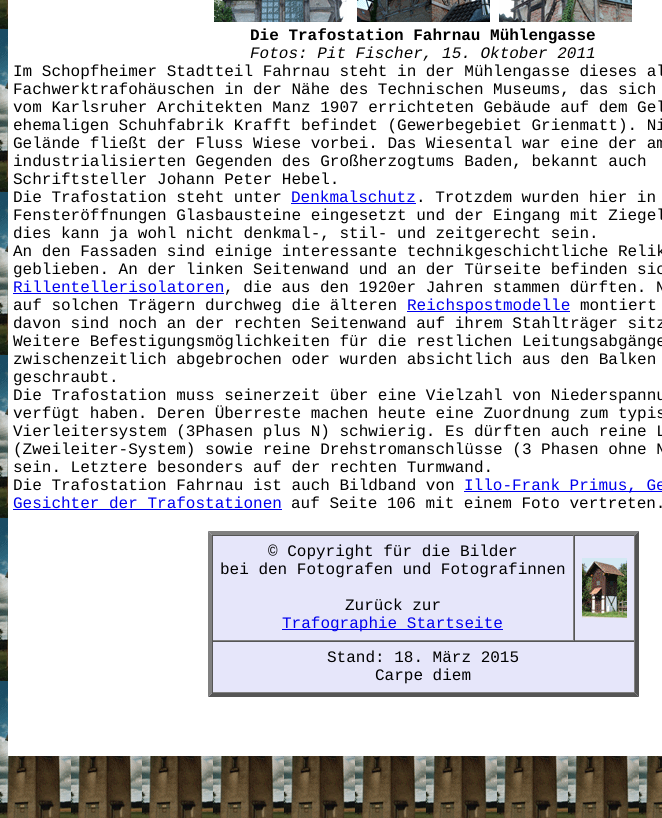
#include <cairo/cairo.h>
#include <math.h>
#include <stddef.h>

typedef struct { double x, y; const char *s; } line_t;
typedef struct { double x, y, w, h; unsigned color; } box_t;
static cairo_t *cr;

static void rgb(unsigned color)
{
	cairo_set_source_rgb(cr, (color >> 16) / 255.0, (color >> 8 & 255) / 255.0, (color & 255) / 255.0);
}

static void image(const char *path, double x, double y, double w, double h)
{
	cairo_surface_t *image = cairo_image_surface_create_from_png(path);
	cairo_save(cr);
	cairo_set_source_surface(cr, image, x, y);
	cairo_rectangle(cr, x, y, w, h);
	cairo_fill(cr);
	cairo_restore(cr);
	cairo_surface_destroy(image);
}

int main(void) {
	cairo_surface_t *surface = cairo_image_surface_create(CAIRO_FORMAT_RGB24, 662, 818);
	cr = cairo_create(surface);
	cairo_font_options_t *options = cairo_font_options_create();
	cairo_font_options_set_hint_metrics(options, CAIRO_HINT_METRICS_OFF);
	cairo_font_options_set_hint_style(options, CAIRO_HINT_STYLE_NONE);
	cairo_set_font_options(cr, options);
	cairo_set_miter_limit(cr, 4);
	rgb(0xffffff);
	cairo_paint(cr);
	image("img/1.png", 0, 0, 662, 818);
	rgb(0xffffff);
	cairo_rectangle(cr, 8, 0, 654, 756);
	cairo_fill(cr);
	image("img/2.png", 214, 0, 133, 22);
	image("img/3.png", 357, 0, 133, 22);
	image("img/4.png", 499, 0, 133, 22);
	{
		static const box_t items[] = {
			{291, 203, 125, 1, 0x0000ee},
			{13, 293, 211, 1, 0x0000ee},
			{407, 311, 163, 1, 0x0000ee},
			{464, 491, 198, 1, 0x0000ee},
			{13, 509, 269, 1, 0x0000ee},
			{208, 531, 431, 166, 0xe6e6fa},
		};
		for (size_t i = 0; i < sizeof items / sizeof *items; i++) {
			rgb(items[i].color);
			cairo_rectangle(cr, items[i].x, items[i].y, items[i].w, items[i].h);
			cairo_fill(cr);
		}
	}
	rgb(0x808080);
	cairo_new_path(cr);
	cairo_move_to(cr, 208, 531);
	cairo_line_to(cr, 639, 531);
	cairo_line_to(cr, 635, 535);
	cairo_line_to(cr, 212, 535);
	cairo_close_path(cr);
	cairo_fill(cr);
	rgb(0x555555);
	cairo_new_path(cr);
	cairo_move_to(cr, 639, 531);
	cairo_line_to(cr, 639, 697);
	cairo_line_to(cr, 635, 693);
	cairo_line_to(cr, 635, 535);
	cairo_close_path(cr);
	cairo_fill(cr);
	cairo_new_path(cr);
	cairo_move_to(cr, 639, 697);
	cairo_line_to(cr, 208, 697);
	cairo_line_to(cr, 212, 693);
	cairo_line_to(cr, 635, 693);
	cairo_close_path(cr);
	cairo_fill(cr);
	rgb(0x808080);
	cairo_new_path(cr);
	cairo_move_to(cr, 208, 697);
	cairo_line_to(cr, 208, 531);
	cairo_line_to(cr, 212, 535);
	cairo_line_to(cr, 212, 693);
	cairo_close_path(cr);
	cairo_fill(cr);
	{
		static const box_t items[] = {
			{212, 535, 423, 1, 0x555555},
			{573, 535, 1, 106, 0x808080},
			{212, 640, 362, 1, 0x808080},
			{212, 535, 1, 106, 0x555555},
			{282, 629, 221, 1, 0x0000ee},
			{634, 535, 1, 106, 0x808080},
			{574, 640, 61, 1, 0x808080},
			{574, 535, 1, 106, 0x555555},
		};
		for (size_t i = 0; i < sizeof items / sizeof *items; i++) {
			rgb(items[i].color);
			cairo_rectangle(cr, items[i].x, items[i].y, items[i].w, items[i].h);
			cairo_fill(cr);
		}
	}
	image("img/5.png", 582, 558, 45, 60);
	{
		static const box_t items[] = {
			{212, 641, 423, 1, 0x555555},
			{634, 641, 1, 52, 0x808080},
			{212, 692, 423, 1, 0x808080},
			{212, 641, 1, 52, 0x555555},
		};
		for (size_t i = 0; i < sizeof items / sizeof *items; i++) {
			rgb(items[i].color);
			cairo_rectangle(cr, items[i].x, items[i].y, items[i].w, items[i].h);
			cairo_fill(cr);
		}
	}
	cairo_select_font_face(cr, "Liberation Mono", CAIRO_FONT_SLANT_NORMAL, CAIRO_FONT_WEIGHT_BOLD);
	cairo_set_font_size(cr, 16);
	rgb(0x000000);
	cairo_move_to(cr, 250, 40);
	cairo_show_text(cr, "Die Trafostation Fahrnau Mühlengasse");
	cairo_select_font_face(cr, "Liberation Mono", CAIRO_FONT_SLANT_ITALIC, CAIRO_FONT_WEIGHT_NORMAL);
	cairo_move_to(cr, 250, 58);
	cairo_show_text(cr, "Fotos: Pit Fischer, 15. Oktober 2011");
	cairo_select_font_face(cr, "Liberation Mono", CAIRO_FONT_SLANT_NORMAL, CAIRO_FONT_WEIGHT_NORMAL);
	{
		static const line_t items[] = {
			{13, 76, "Im Schopfheimer Stadtteil Fahrnau steht in der Mühlengasse dieses al"},
			{13, 94, "Fachwerktrafohäuschen in der Nähe des Technischen Museums, das sich"},
			{13, 112, "vom Karlsruher Architekten Manz 1907 errichteten Gebäude auf dem Gel"},
			{13, 130, "ehemaligen Schuhfabrik Krafft befindet (Gewerbegebiet Grienmatt). Ni"},
			{13, 148, "Gelände fließt der Fluss Wiese vorbei. Das Wiesental war eine der am"},
			{13, 166, "industrialisierten Gegenden des Großherzogtums Baden, bekannt auch"},
			{13, 184, "Schriftsteller Johann Peter Hebel."},
			{13, 202, "Die Trafostation steht unter"},
		};
		for (size_t i = 0; i < sizeof items / sizeof *items; i++) {
			cairo_move_to(cr, items[i].x, items[i].y);
			cairo_show_text(cr, items[i].s);
		}
	}
	rgb(0x0000ee);
	cairo_move_to(cr, 291, 202);
	cairo_show_text(cr, "Denkmalschutz");
	rgb(0x000000);
	{
		static const line_t items[] = {
			{416, 202, ". Trotzdem wurden hier in"},
			{13, 220, "Fensteröffnungen Glasbausteine eingesetzt und der Eingang mit Ziegel"},
			{13, 238, "dies kann ja wohl nicht denkmal-, stil- und zeitgerecht sein."},
			{13, 256, "An den Fassaden sind einige interessante technikgeschichtliche Relik"},
			{13, 274, "geblieben. An der linken Seitenwand und an der Türseite befinden sic"},
		};
		for (size_t i = 0; i < sizeof items / sizeof *items; i++) {
			cairo_move_to(cr, items[i].x, items[i].y);
			cairo_show_text(cr, items[i].s);
		}
	}
	rgb(0x0000ee);
	cairo_move_to(cr, 13, 292);
	cairo_show_text(cr, "Rillentellerisolatoren");
	rgb(0x000000);
	cairo_move_to(cr, 224, 292);
	cairo_show_text(cr, ", die aus den 1920er Jahren stammen dürften. N");
	cairo_move_to(cr, 13, 310);
	cairo_show_text(cr, "auf solchen Trägern durchweg die älteren");
	rgb(0x0000ee);
	cairo_move_to(cr, 407, 310);
	cairo_show_text(cr, "Reichspostmodelle");
	rgb(0x000000);
	{
		static const line_t items[] = {
			{580, 310, "montiert"},
			{13, 328, "davon sind noch an der rechten Seitenwand auf ihrem Stahlträger sitz"},
			{13, 346, "Weitere Befestigungsmöglichkeiten für die restlichen Leitungsabgänge"},
			{13, 364, "zwischenzeitlich abgebrochen oder wurden absichtlich aus den Balken"},
			{13, 382, "geschraubt."},
			{13, 400, "Die Trafostation muss seinerzeit über eine Vielzahl von Niederspannu"},
			{13, 418, "verfügt haben. Deren Überreste machen heute eine Zuordnung zum typis"},
			{13, 436, "Vierleitersystem (3Phasen plus N) schwierig. Es dürften auch reine L"},
			{13, 454, "(Zweileiter-System) sowie reine Drehstromanschlüsse (3 Phasen ohne N"},
			{13, 472, "sein. Letztere besonders auf der rechten Turmwand."},
			{13, 490, "Die Trafostation Fahrnau ist auch Bildband von"},
		};
		for (size_t i = 0; i < sizeof items / sizeof *items; i++) {
			cairo_move_to(cr, items[i].x, items[i].y);
			cairo_show_text(cr, items[i].s);
		}
	}
	rgb(0x0000ee);
	cairo_move_to(cr, 464, 490);
	cairo_show_text(cr, "Illo-Frank Primus, Ge");
	cairo_move_to(cr, 13, 508);
	cairo_show_text(cr, "Gesichter der Trafostationen");
	rgb(0x000000);
	{
		static const line_t items[] = {
			{291, 508, "auf Seite 106 mit einem Foto vertreten."},
			{268, 556, "© Copyright für die Bilder"},
			{220, 574, "bei den Fotografen und Fotografinnen"},
			{345, 610, "Zurück zur"},
		};
		for (size_t i = 0; i < sizeof items / sizeof *items; i++) {
			cairo_move_to(cr, items[i].x, items[i].y);
			cairo_show_text(cr, items[i].s);
		}
	}
	rgb(0x0000ee);
	cairo_move_to(cr, 282, 628);
	cairo_show_text(cr, "Trafographie Startseite");
	rgb(0x000000);
	cairo_move_to(cr, 327, 662);
	cairo_show_text(cr, "Stand: 18. März 2015");
	cairo_move_to(cr, 375, 680);
	cairo_show_text(cr, "Carpe diem");
	cairo_surface_write_to_png(surface, "page.png");
	cairo_font_options_destroy(options);
	cairo_destroy(cr);
	cairo_surface_destroy(surface);
	return 0;
}
